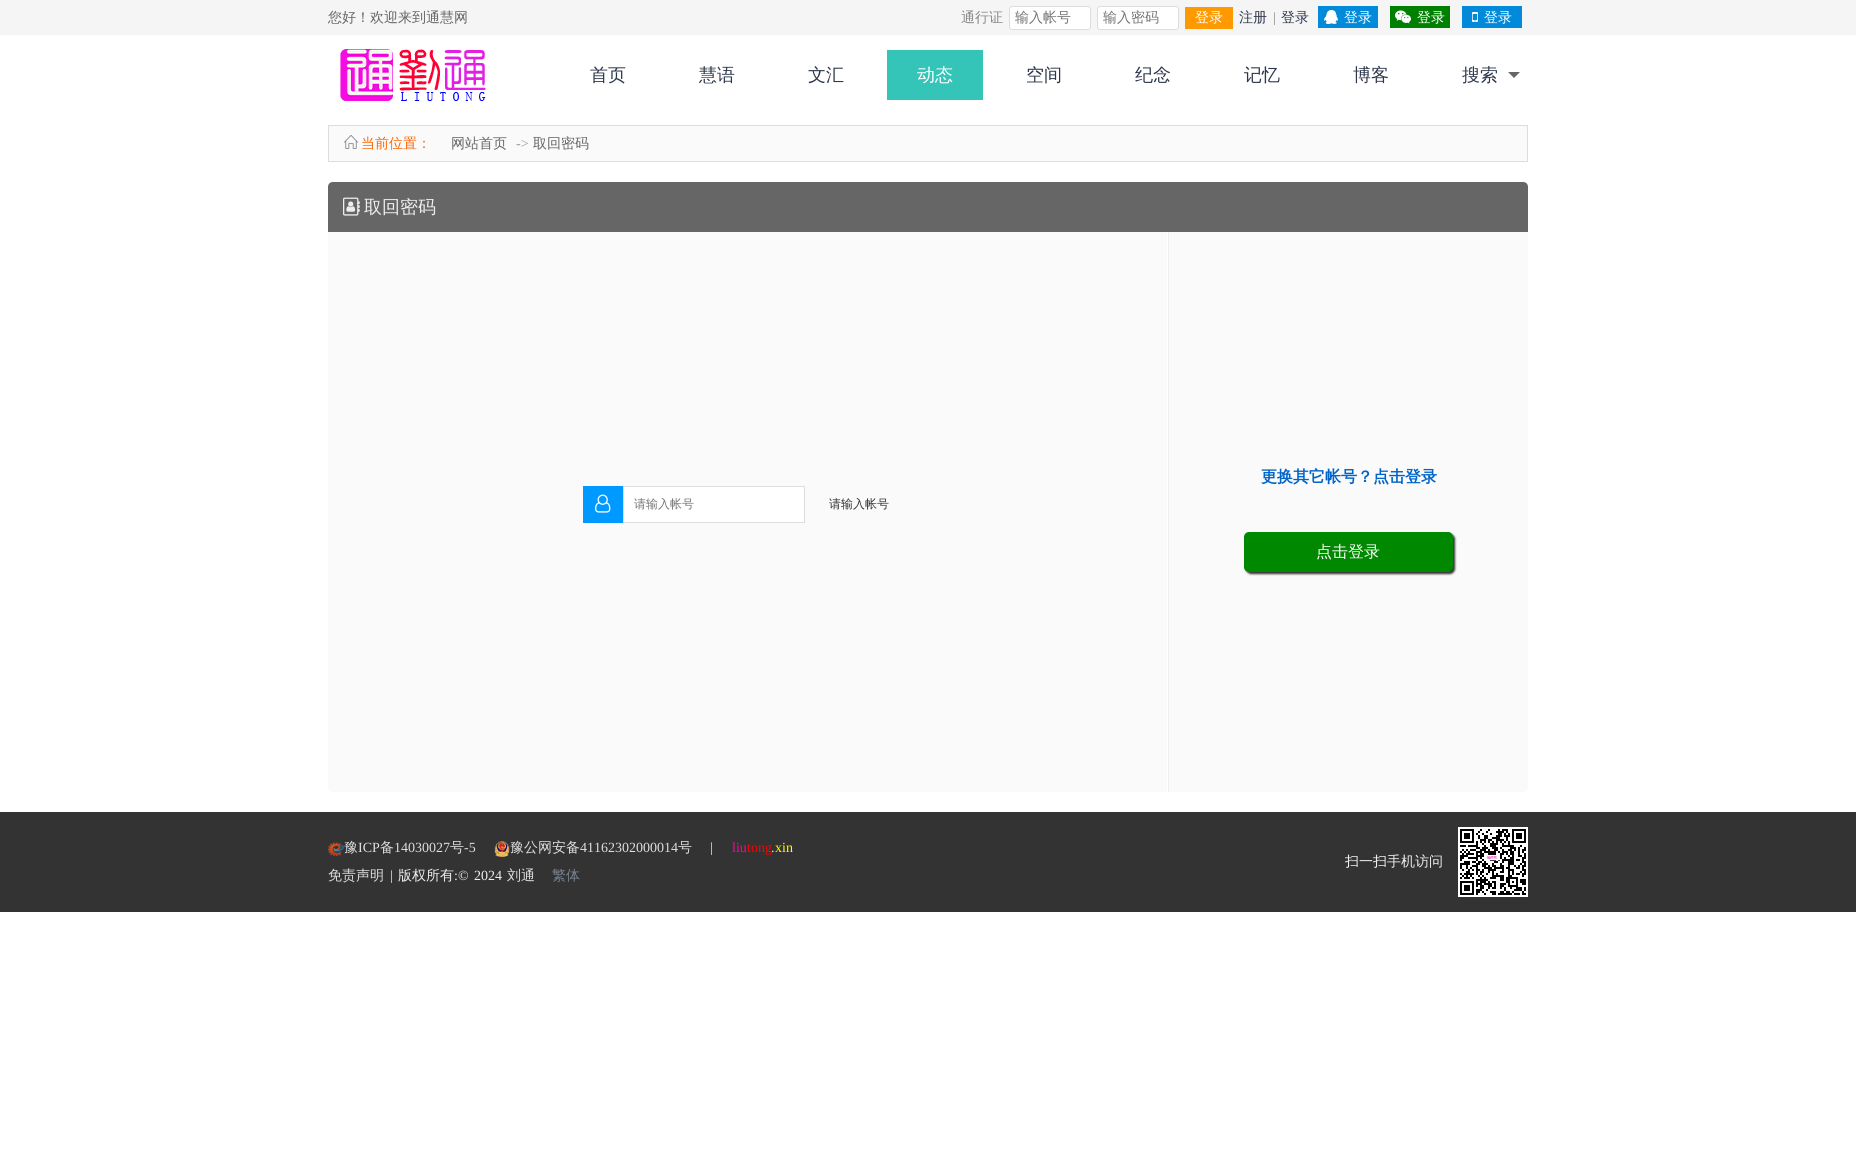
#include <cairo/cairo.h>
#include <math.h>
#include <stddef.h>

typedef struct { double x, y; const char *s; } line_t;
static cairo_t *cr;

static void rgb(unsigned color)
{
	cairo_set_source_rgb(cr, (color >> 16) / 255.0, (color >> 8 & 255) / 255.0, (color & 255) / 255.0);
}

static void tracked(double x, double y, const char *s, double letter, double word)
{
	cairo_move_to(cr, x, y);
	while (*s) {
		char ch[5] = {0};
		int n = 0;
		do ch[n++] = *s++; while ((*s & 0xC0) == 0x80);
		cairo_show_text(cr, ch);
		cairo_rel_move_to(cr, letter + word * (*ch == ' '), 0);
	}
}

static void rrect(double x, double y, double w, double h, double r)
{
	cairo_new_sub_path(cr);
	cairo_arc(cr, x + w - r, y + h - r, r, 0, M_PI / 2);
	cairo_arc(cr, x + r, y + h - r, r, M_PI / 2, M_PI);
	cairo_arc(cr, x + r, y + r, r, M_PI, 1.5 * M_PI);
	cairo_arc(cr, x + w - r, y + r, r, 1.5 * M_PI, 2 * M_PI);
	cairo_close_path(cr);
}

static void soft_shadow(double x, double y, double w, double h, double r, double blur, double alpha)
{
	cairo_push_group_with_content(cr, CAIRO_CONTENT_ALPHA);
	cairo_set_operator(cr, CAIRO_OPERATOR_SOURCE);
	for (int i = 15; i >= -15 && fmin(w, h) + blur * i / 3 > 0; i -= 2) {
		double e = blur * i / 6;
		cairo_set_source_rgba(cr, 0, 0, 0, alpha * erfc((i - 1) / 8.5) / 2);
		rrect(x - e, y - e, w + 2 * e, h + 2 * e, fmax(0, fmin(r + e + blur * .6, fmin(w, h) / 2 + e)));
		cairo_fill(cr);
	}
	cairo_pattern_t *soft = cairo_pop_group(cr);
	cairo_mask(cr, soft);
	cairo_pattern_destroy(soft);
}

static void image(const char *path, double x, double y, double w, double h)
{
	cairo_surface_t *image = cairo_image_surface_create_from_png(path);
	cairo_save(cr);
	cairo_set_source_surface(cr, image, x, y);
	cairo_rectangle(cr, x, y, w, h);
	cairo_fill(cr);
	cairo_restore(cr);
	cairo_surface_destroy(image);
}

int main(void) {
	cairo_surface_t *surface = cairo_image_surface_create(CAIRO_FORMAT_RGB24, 1856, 1160);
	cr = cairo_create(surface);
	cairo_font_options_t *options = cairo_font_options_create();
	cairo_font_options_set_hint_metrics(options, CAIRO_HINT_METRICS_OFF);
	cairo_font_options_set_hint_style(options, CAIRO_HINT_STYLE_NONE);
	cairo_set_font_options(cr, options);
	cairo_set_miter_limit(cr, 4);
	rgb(0xffffff);
	cairo_paint(cr);
	rgb(0xf5f5f5);
	cairo_rectangle(cr, 0, 0, 1856, 35);
	cairo_fill(cr);
	rgb(0xffffff);
	rrect(1009.5, 6.5, 81, 23, 2.5);
	cairo_fill_preserve(cr);
	rgb(0xdddddd);
	cairo_set_line_width(cr, 1);
	cairo_stroke(cr);
	rgb(0xffffff);
	rrect(1097.5, 6.5, 81, 23, 2.5);
	cairo_fill_preserve(cr);
	rgb(0xdddddd);
	cairo_stroke(cr);
	rgb(0xff9900);
	cairo_rectangle(cr, 1185, 7, 48, 22);
	cairo_fill(cr);
	rgb(0x008ad9);
	cairo_rectangle(cr, 1318, 6, 60, 22);
	cairo_fill(cr);
	image("img/1.png", 1324, 10, 14, 14);
	rgb(0x008000);
	cairo_rectangle(cr, 1390, 6, 60, 22);
	cairo_fill(cr);
	image("img/2.png", 1395, 10, 16, 14);
	rgb(0x008ad9);
	cairo_rectangle(cr, 1462, 6, 60, 22);
	cairo_fill(cr);
	image("img/3.png", 1472, 12, 6, 10);
	image("img/4.png", 340, 49, 146, 52);
	rgb(0x35c4b8);
	cairo_rectangle(cr, 887, 50, 96, 50);
	cairo_fill(cr);
	rgb(0x666666);
	cairo_new_path(cr);
	cairo_move_to(cr, 1508, 72);
	cairo_line_to(cr, 1520, 72);
	cairo_line_to(cr, 1514, 78);
	cairo_close_path(cr);
	cairo_fill(cr);
	rgb(0xfafafa);
	cairo_rectangle(cr, 328.5, 125.5, 1199, 36);
	cairo_fill_preserve(cr);
	rgb(0xdddddd);
	cairo_stroke(cr);
	image("img/5.png", 344, 135, 14, 14);
	rgb(0xfafafa);
	rrect(328, 182, 1200, 610, 5);
	cairo_fill(cr);
	rgb(0x666666);
	cairo_new_path(cr);
	cairo_move_to(cr, 333, 182);
	cairo_line_to(cr, 1523, 182);
	cairo_curve_to(cr, 1526, 182, 1528, 184, 1528, 187);
	cairo_line_to(cr, 1528, 232);
	cairo_line_to(cr, 328, 232);
	cairo_line_to(cr, 328, 187);
	cairo_curve_to(cr, 328, 184, 330, 182, 333, 182);
	cairo_close_path(cr);
	cairo_fill(cr);
	image("img/6.png", 343, 197, 17, 19);
	rgb(0xffffff);
	cairo_rectangle(cr, 1167, 232, 1, 560);
	cairo_fill(cr);
	rgb(0x0099ff);
	cairo_rectangle(cr, 583, 486, 40, 37);
	cairo_fill(cr);
	image("img/7.png", 595, 494, 16, 19);
	rgb(0xffffff);
	cairo_rectangle(cr, 623.5, 486.5, 181, 36);
	cairo_fill_preserve(cr);
	rgb(0xdddddd);
	cairo_stroke(cr);
	rgb(0xeeeeee);
	cairo_rectangle(cr, 1168, 232, 1, 560);
	cairo_fill(cr);
	rgb(0x333333);
	soft_shadow(1246, 534, 209, 40, 5, 1, 1);
	rgb(0x008800);
	rrect(1244, 532, 209, 40, 5);
	cairo_fill(cr);
	rgb(0x333333);
	cairo_rectangle(cr, 0, 812, 1856, 100);
	cairo_fill(cr);
	image("img/8.png", 328, 842, 16, 15);
	image("img/9.png", 494, 841, 16, 16);
	image("img/10.png", 1458, 827, 70, 70);
	cairo_select_font_face(cr, "WenQuanYi Zen Hei Medium", CAIRO_FONT_SLANT_NORMAL, CAIRO_FONT_WEIGHT_NORMAL);
	cairo_set_font_size(cr, 14);
	rgb(0x666666);
	cairo_move_to(cr, 328, 22);
	cairo_show_text(cr, "您好！欢迎来到通慧网");
	rgb(0x888888);
	cairo_move_to(cr, 961, 22);
	cairo_show_text(cr, "通行证");
	rgb(0x757575);
	cairo_move_to(cr, 1015, 22);
	cairo_show_text(cr, "输入帐号");
	cairo_move_to(cr, 1103, 22);
	cairo_show_text(cr, "输入密码");
	rgb(0xffffff);
	cairo_move_to(cr, 1195, 22);
	cairo_show_text(cr, "登录");
	rgb(0x2d374b);
	cairo_move_to(cr, 1239, 22);
	cairo_show_text(cr, "注册");
	cairo_select_font_face(cr, "Liberation Serif", CAIRO_FONT_SLANT_NORMAL, CAIRO_FONT_WEIGHT_NORMAL);
	rgb(0x888888);
	cairo_move_to(cr, 1273, 22);
	cairo_show_text(cr, "|");
	cairo_select_font_face(cr, "WenQuanYi Zen Hei Medium", CAIRO_FONT_SLANT_NORMAL, CAIRO_FONT_WEIGHT_NORMAL);
	rgb(0x2d374b);
	cairo_move_to(cr, 1281, 22);
	cairo_show_text(cr, "登录");
	rgb(0xffffff);
	{
		static const line_t items[] = {
			{1344, 22, "登录"},
			{1417, 22, "登录"},
			{1484, 22, "登录"},
		};
		for (size_t i = 0; i < sizeof items / sizeof *items; i++) {
			cairo_move_to(cr, items[i].x, items[i].y);
			cairo_show_text(cr, items[i].s);
		}
	}
	cairo_set_font_size(cr, 18);
	rgb(0x2d374b);
	{
		static const line_t items[] = {
			{590, 81, "首页"},
			{699, 81, "慧语"},
			{808, 81, "文汇"},
		};
		for (size_t i = 0; i < sizeof items / sizeof *items; i++) {
			cairo_move_to(cr, items[i].x, items[i].y);
			cairo_show_text(cr, items[i].s);
		}
	}
	rgb(0xffffff);
	cairo_move_to(cr, 917, 81);
	cairo_show_text(cr, "动态");
	rgb(0x2d374b);
	{
		static const line_t items[] = {
			{1026, 81, "空间"},
			{1135, 81, "纪念"},
			{1244, 81, "记忆"},
			{1353, 81, "博客"},
			{1462, 81, "搜索"},
		};
		for (size_t i = 0; i < sizeof items / sizeof *items; i++) {
			cairo_move_to(cr, items[i].x, items[i].y);
			cairo_show_text(cr, items[i].s);
		}
	}
	cairo_set_font_size(cr, 14);
	rgb(0xff6600);
	cairo_move_to(cr, 361, 148);
	cairo_show_text(cr, "当前位置：");
	rgb(0x666666);
	cairo_move_to(cr, 451, 148);
	cairo_show_text(cr, "网站首页");
	cairo_select_font_face(cr, "Liberation Serif", CAIRO_FONT_SLANT_NORMAL, CAIRO_FONT_WEIGHT_NORMAL);
	rgb(0x999999);
	cairo_move_to(cr, 516, 148);
	cairo_show_text(cr, "->");
	cairo_select_font_face(cr, "WenQuanYi Zen Hei Medium", CAIRO_FONT_SLANT_NORMAL, CAIRO_FONT_WEIGHT_NORMAL);
	rgb(0x666666);
	cairo_move_to(cr, 533, 148);
	cairo_show_text(cr, "取回密码");
	cairo_set_font_size(cr, 18);
	rgb(0xeeeeee);
	cairo_move_to(cr, 364, 213);
	cairo_show_text(cr, "取回密码");
	cairo_set_font_size(cr, 12);
	rgb(0x757575);
	cairo_move_to(cr, 634, 508);
	cairo_show_text(cr, "请输入帐号");
	rgb(0x333333);
	cairo_move_to(cr, 829, 508);
	cairo_show_text(cr, "请输入帐号");
	cairo_select_font_face(cr, "WenQuanYi Zen Hei", CAIRO_FONT_SLANT_NORMAL, CAIRO_FONT_WEIGHT_BOLD);
	cairo_set_font_size(cr, 16);
	rgb(0x0064ca);
	cairo_move_to(cr, 1261, 482);
	cairo_show_text(cr, "更换其它帐号？点击登录");
	cairo_select_font_face(cr, "WenQuanYi Zen Hei Medium", CAIRO_FONT_SLANT_NORMAL, CAIRO_FONT_WEIGHT_NORMAL);
	rgb(0xffffff);
	cairo_move_to(cr, 1316, 557);
	cairo_show_text(cr, "点击登录");
	cairo_set_font_size(cr, 14);
	rgb(0xdddddd);
	cairo_move_to(cr, 344, 852);
	cairo_show_text(cr, "豫");
	cairo_select_font_face(cr, "Liberation Serif", CAIRO_FONT_SLANT_NORMAL, CAIRO_FONT_WEIGHT_NORMAL);
	cairo_move_to(cr, 358, 852);
	cairo_show_text(cr, "ICP");
	cairo_select_font_face(cr, "WenQuanYi Zen Hei Medium", CAIRO_FONT_SLANT_NORMAL, CAIRO_FONT_WEIGHT_NORMAL);
	cairo_move_to(cr, 380, 852);
	cairo_show_text(cr, "备");
	cairo_select_font_face(cr, "Liberation Serif", CAIRO_FONT_SLANT_NORMAL, CAIRO_FONT_WEIGHT_NORMAL);
	cairo_move_to(cr, 394, 852);
	cairo_show_text(cr, "14030027");
	cairo_select_font_face(cr, "WenQuanYi Zen Hei Medium", CAIRO_FONT_SLANT_NORMAL, CAIRO_FONT_WEIGHT_NORMAL);
	cairo_move_to(cr, 450, 852);
	cairo_show_text(cr, "号");
	cairo_select_font_face(cr, "Liberation Serif", CAIRO_FONT_SLANT_NORMAL, CAIRO_FONT_WEIGHT_NORMAL);
	cairo_move_to(cr, 464, 852);
	cairo_show_text(cr, "-5");
	cairo_select_font_face(cr, "WenQuanYi Zen Hei Medium", CAIRO_FONT_SLANT_NORMAL, CAIRO_FONT_WEIGHT_NORMAL);
	cairo_move_to(cr, 510, 852);
	cairo_show_text(cr, "豫公网安备");
	cairo_select_font_face(cr, "Liberation Serif", CAIRO_FONT_SLANT_NORMAL, CAIRO_FONT_WEIGHT_NORMAL);
	cairo_move_to(cr, 580, 852);
	cairo_show_text(cr, "41162302000014");
	cairo_select_font_face(cr, "WenQuanYi Zen Hei Medium", CAIRO_FONT_SLANT_NORMAL, CAIRO_FONT_WEIGHT_NORMAL);
	cairo_move_to(cr, 678, 852);
	cairo_show_text(cr, "号");
	cairo_select_font_face(cr, "Liberation Serif", CAIRO_FONT_SLANT_NORMAL, CAIRO_FONT_WEIGHT_NORMAL);
	rgb(0xeeeeee);
	cairo_move_to(cr, 710, 852);
	cairo_show_text(cr, "|");
	rgb(0xff0099);
	cairo_move_to(cr, 732, 852);
	cairo_show_text(cr, "liu");
	rgb(0xff0000);
	cairo_move_to(cr, 747, 852);
	cairo_show_text(cr, "tong");
	rgb(0xdddddd);
	cairo_move_to(cr, 771, 852);
	cairo_show_text(cr, ".");
	rgb(0xffff00);
	cairo_move_to(cr, 775, 852);
	cairo_show_text(cr, "xin");
	cairo_select_font_face(cr, "WenQuanYi Zen Hei Medium", CAIRO_FONT_SLANT_NORMAL, CAIRO_FONT_WEIGHT_NORMAL);
	rgb(0xdddddd);
	cairo_move_to(cr, 328, 880);
	cairo_show_text(cr, "免责声明");
	cairo_select_font_face(cr, "Liberation Serif", CAIRO_FONT_SLANT_NORMAL, CAIRO_FONT_WEIGHT_NORMAL);
	rgb(0xeeeeee);
	cairo_move_to(cr, 390, 880);
	cairo_show_text(cr, "|");
	cairo_select_font_face(cr, "WenQuanYi Zen Hei Medium", CAIRO_FONT_SLANT_NORMAL, CAIRO_FONT_WEIGHT_NORMAL);
	cairo_move_to(cr, 398, 880);
	cairo_show_text(cr, "版权所有");
	cairo_select_font_face(cr, "Liberation Serif", CAIRO_FONT_SLANT_NORMAL, CAIRO_FONT_WEIGHT_NORMAL);
	tracked(454, 880, ":© 2024", 0, 2);
	cairo_select_font_face(cr, "WenQuanYi Zen Hei Medium", CAIRO_FONT_SLANT_NORMAL, CAIRO_FONT_WEIGHT_NORMAL);
	rgb(0xdddddd);
	cairo_move_to(cr, 507, 880);
	cairo_show_text(cr, "刘通");
	rgb(0x76838f);
	cairo_move_to(cr, 552, 880);
	cairo_show_text(cr, "繁体");
	rgb(0xeeeeee);
	cairo_move_to(cr, 1345, 866);
	cairo_show_text(cr, "扫一扫手机访问");
	cairo_surface_write_to_png(surface, "page.png");
	cairo_font_options_destroy(options);
	cairo_destroy(cr);
	cairo_surface_destroy(surface);
	return 0;
}
